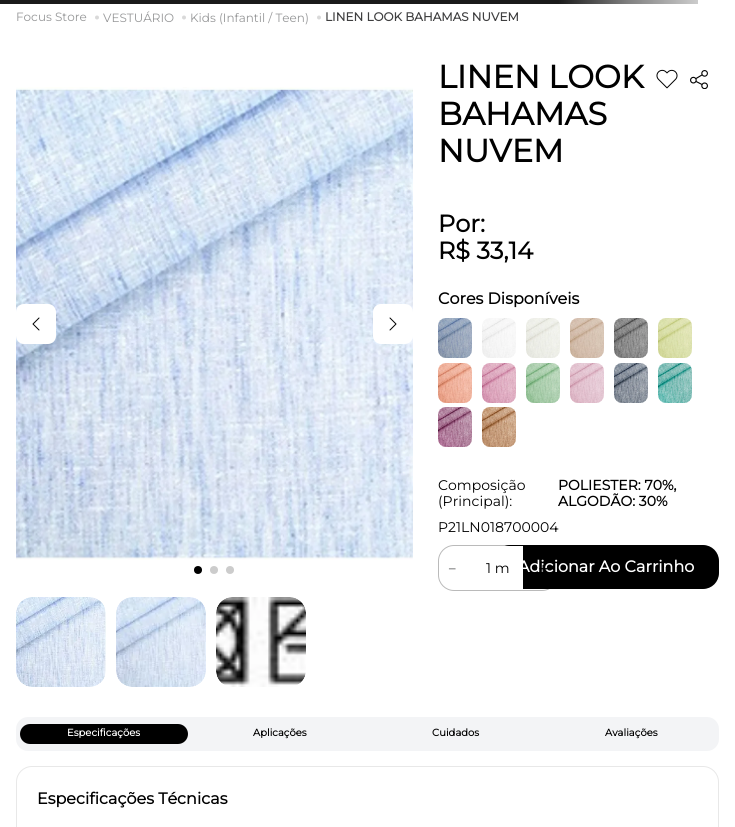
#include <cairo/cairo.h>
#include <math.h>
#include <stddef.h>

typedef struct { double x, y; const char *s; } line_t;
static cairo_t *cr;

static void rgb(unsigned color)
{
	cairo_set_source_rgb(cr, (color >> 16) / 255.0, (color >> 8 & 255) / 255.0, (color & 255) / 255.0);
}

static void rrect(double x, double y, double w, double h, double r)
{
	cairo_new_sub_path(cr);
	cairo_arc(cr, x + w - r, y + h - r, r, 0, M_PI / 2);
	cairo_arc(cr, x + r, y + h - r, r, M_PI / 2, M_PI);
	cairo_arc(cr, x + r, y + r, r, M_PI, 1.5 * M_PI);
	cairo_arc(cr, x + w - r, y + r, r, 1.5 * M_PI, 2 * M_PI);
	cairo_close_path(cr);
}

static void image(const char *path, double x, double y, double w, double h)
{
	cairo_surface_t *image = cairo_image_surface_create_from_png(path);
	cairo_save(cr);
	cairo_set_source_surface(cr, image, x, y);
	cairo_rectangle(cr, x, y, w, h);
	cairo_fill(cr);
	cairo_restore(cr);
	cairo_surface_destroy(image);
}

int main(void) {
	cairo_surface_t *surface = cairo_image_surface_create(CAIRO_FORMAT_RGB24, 735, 827);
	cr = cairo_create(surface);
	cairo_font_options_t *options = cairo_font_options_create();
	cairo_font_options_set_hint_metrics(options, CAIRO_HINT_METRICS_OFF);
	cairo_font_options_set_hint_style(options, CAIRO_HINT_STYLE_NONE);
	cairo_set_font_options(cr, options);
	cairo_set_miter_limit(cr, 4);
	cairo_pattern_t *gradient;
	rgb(0xffffff);
	cairo_paint(cr);
	gradient = cairo_pattern_create_linear(0, 2, 698, 2);
	cairo_pattern_add_color_stop_rgba(gradient, 0.8, 0.102, 0.102, 0.102, 1);
	cairo_pattern_add_color_stop_rgba(gradient, 0.9, 0.502, 0.502, 0.502, 1);
	cairo_pattern_add_color_stop_rgba(gradient, 1, 0.8, 0.8, 0.8, 1);
	cairo_set_source(cr, gradient);
	cairo_pattern_destroy(gradient);
	cairo_rectangle(cr, 0, 0, 698, 4);
	cairo_fill(cr);
	rgb(0xd9d9d9);
	cairo_arc(cr, 97, 17.5, 2, 0, 2 * M_PI);
	cairo_fill(cr);
	cairo_arc(cr, 184, 17.5, 2, 0, 2 * M_PI);
	cairo_fill(cr);
	cairo_arc(cr, 319, 17.5, 2, 0, 2 * M_PI);
	cairo_fill(cr);
	image("img/1.png", 16, 87, 397, 473);
	rgb(0xffffff);
	rrect(16, 304, 40, 40, 8);
	cairo_fill(cr);
	cairo_new_path(cr);
	cairo_move_to(cr, 39, 330);
	cairo_line_to(cr, 33, 324);
	cairo_line_to(cr, 39, 318);
	rgb(0x000000);
	cairo_set_line_width(cr, 1);
	cairo_set_line_cap(cr, CAIRO_LINE_CAP_ROUND);
	cairo_set_line_join(cr, CAIRO_LINE_JOIN_ROUND);
	cairo_stroke(cr);
	rgb(0xffffff);
	rrect(373, 304, 40, 40, 8);
	cairo_fill(cr);
	cairo_new_path(cr);
	cairo_move_to(cr, 390, 330);
	cairo_line_to(cr, 396, 324);
	cairo_line_to(cr, 390, 318);
	rgb(0x000000);
	cairo_stroke(cr);
	cairo_arc(cr, 198, 570, 4, 0, 2 * M_PI);
	cairo_fill(cr);
	rgb(0xcccccc);
	cairo_arc(cr, 214, 570, 4, 0, 2 * M_PI);
	cairo_fill(cr);
	cairo_arc(cr, 230, 570, 4, 0, 2 * M_PI);
	cairo_fill(cr);
	image("img/2.png", 16, 597, 90, 90);
	image("img/3.png", 116, 597, 90, 90);
	image("img/4.png", 216, 597, 90, 90);
	image("img/5.png", 656, 69, 22, 20);
	image("img/6.png", 690, 70, 18, 19);
	image("img/7.png", 438, 318, 34, 40);
	image("img/8.png", 482, 318, 34, 40);
	image("img/9.png", 526, 318, 34, 40);
	image("img/10.png", 570, 318, 34, 40);
	image("img/11.png", 614, 318, 34, 40);
	image("img/12.png", 658, 318, 34, 40);
	image("img/13.png", 438, 363, 34, 40);
	image("img/14.png", 482, 363, 34, 40);
	image("img/15.png", 526, 363, 34, 40);
	image("img/16.png", 570, 363, 34, 40);
	image("img/17.png", 614, 363, 34, 40);
	image("img/18.png", 658, 363, 34, 40);
	image("img/19.png", 438, 407, 34, 40);
	image("img/20.png", 482, 407, 34, 40);
	rrect(438.5, 545.5, 119, 45, 15.5);
	rgb(0xbababa);
	cairo_set_line_cap(cr, CAIRO_LINE_CAP_BUTT);
	cairo_set_line_join(cr, CAIRO_LINE_JOIN_MITER);
	cairo_stroke(cr);
	rgb(0x000000);
	rrect(495, 546, 223, 42, 15);
	cairo_fill_preserve(cr);
	cairo_set_line_width(cr, 2);
	cairo_stroke(cr);
	rgb(0xffffff);
	cairo_rectangle(cr, 494, 546, 29, 43);
	cairo_fill(cr);
	rgb(0xf3f4f6);
	rrect(16, 717, 703, 34, 12);
	cairo_fill(cr);
	rgb(0x000000);
	rrect(21, 725, 166, 18, 9);
	cairo_fill_preserve(cr);
	cairo_stroke(cr);
	rrect(16.5, 766.5, 702, 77, 15.5);
	rgb(0xe8e8e8);
	cairo_set_line_width(cr, 1);
	cairo_stroke(cr);
	cairo_select_font_face(cr, "Montserrat", CAIRO_FONT_SLANT_NORMAL, CAIRO_FONT_WEIGHT_NORMAL);
	cairo_set_font_size(cr, 12);
	rgb(0x979899);
	{
		static const line_t items[] = {
			{16, 21, "Focus Store"},
			{103, 22, "VESTUÁRIO"},
			{190, 22, "Kids (Infantil / Teen)"},
		};
		for (size_t i = 0; i < sizeof items / sizeof *items; i++) {
			cairo_move_to(cr, items[i].x, items[i].y);
			cairo_show_text(cr, items[i].s);
		}
	}
	cairo_select_font_face(cr, "Montserrat", CAIRO_FONT_SLANT_NORMAL, CAIRO_FONT_WEIGHT_BOLD);
	rgb(0x3f3f40);
	cairo_move_to(cr, 325, 21);
	cairo_show_text(cr, "LINEN LOOK BAHAMAS NUVEM");
	cairo_set_font_size(cr, 32);
	rgb(0x000000);
	{
		static const line_t items[] = {
			{438, 88, "LINEN LOOK"},
			{438, 125, "BAHAMAS"},
			{438, 162, "NUVEM"},
		};
		for (size_t i = 0; i < sizeof items / sizeof *items; i++) {
			cairo_move_to(cr, items[i].x, items[i].y);
			cairo_show_text(cr, items[i].s);
		}
	}
	cairo_set_font_size(cr, 24);
	cairo_move_to(cr, 438, 232);
	cairo_show_text(cr, "Por:");
	cairo_move_to(cr, 438, 259);
	cairo_show_text(cr, "R$ 33,14");
	cairo_set_font_size(cr, 16);
	cairo_move_to(cr, 438, 304);
	cairo_show_text(cr, "Cores Disponíveis");
	cairo_select_font_face(cr, "Montserrat", CAIRO_FONT_SLANT_NORMAL, CAIRO_FONT_WEIGHT_NORMAL);
	cairo_set_font_size(cr, 14);
	cairo_move_to(cr, 438, 490);
	cairo_show_text(cr, "Composição");
	cairo_move_to(cr, 438, 506);
	cairo_show_text(cr, "(Principal):");
	cairo_select_font_face(cr, "Montserrat", CAIRO_FONT_SLANT_NORMAL, CAIRO_FONT_WEIGHT_BOLD);
	cairo_move_to(cr, 558, 490);
	cairo_show_text(cr, "POLIESTER: 70%,");
	cairo_move_to(cr, 558, 506);
	cairo_show_text(cr, "ALGODÃO: 30%");
	cairo_select_font_face(cr, "Montserrat", CAIRO_FONT_SLANT_NORMAL, CAIRO_FONT_WEIGHT_NORMAL);
	cairo_move_to(cr, 438, 532);
	cairo_show_text(cr, "P21LN018700004");
	cairo_select_font_face(cr, "WenQuanYi Zen Hei", CAIRO_FONT_SLANT_NORMAL, CAIRO_FONT_WEIGHT_BOLD);
	rgb(0x979899);
	cairo_move_to(cr, 445, 573);
	cairo_show_text(cr, "－");
	cairo_select_font_face(cr, "Montserrat", CAIRO_FONT_SLANT_NORMAL, CAIRO_FONT_WEIGHT_NORMAL);
	rgb(0x000000);
	cairo_move_to(cr, 486, 573);
	cairo_show_text(cr, "1 m");
	cairo_select_font_face(cr, "Montserrat", CAIRO_FONT_SLANT_NORMAL, CAIRO_FONT_WEIGHT_BOLD);
	cairo_set_font_size(cr, 16);
	rgb(0xffffff);
	cairo_move_to(cr, 518, 572);
	cairo_show_text(cr, "Adicionar Ao Carrinho");
	cairo_select_font_face(cr, "WenQuanYi Zen Hei", CAIRO_FONT_SLANT_NORMAL, CAIRO_FONT_WEIGHT_BOLD);
	cairo_set_font_size(cr, 14);
	rgb(0x000000);
	cairo_move_to(cr, 536, 573);
	cairo_show_text(cr, "＋");
	cairo_select_font_face(cr, "Montserrat", CAIRO_FONT_SLANT_NORMAL, CAIRO_FONT_WEIGHT_BOLD);
	cairo_set_font_size(cr, 10);
	rgb(0xffffff);
	cairo_move_to(cr, 67, 736);
	cairo_show_text(cr, "Especificações");
	rgb(0x000000);
	{
		static const line_t items[] = {
			{253, 736, "Aplicações"},
			{432, 736, "Cuidados"},
			{605, 736, "Avaliações"},
		};
		for (size_t i = 0; i < sizeof items / sizeof *items; i++) {
			cairo_move_to(cr, items[i].x, items[i].y);
			cairo_show_text(cr, items[i].s);
		}
	}
	cairo_set_font_size(cr, 16);
	cairo_move_to(cr, 37, 804);
	cairo_show_text(cr, "Especificações Técnicas");
	cairo_surface_write_to_png(surface, "page.png");
	cairo_font_options_destroy(options);
	cairo_destroy(cr);
	cairo_surface_destroy(surface);
	return 0;
}
